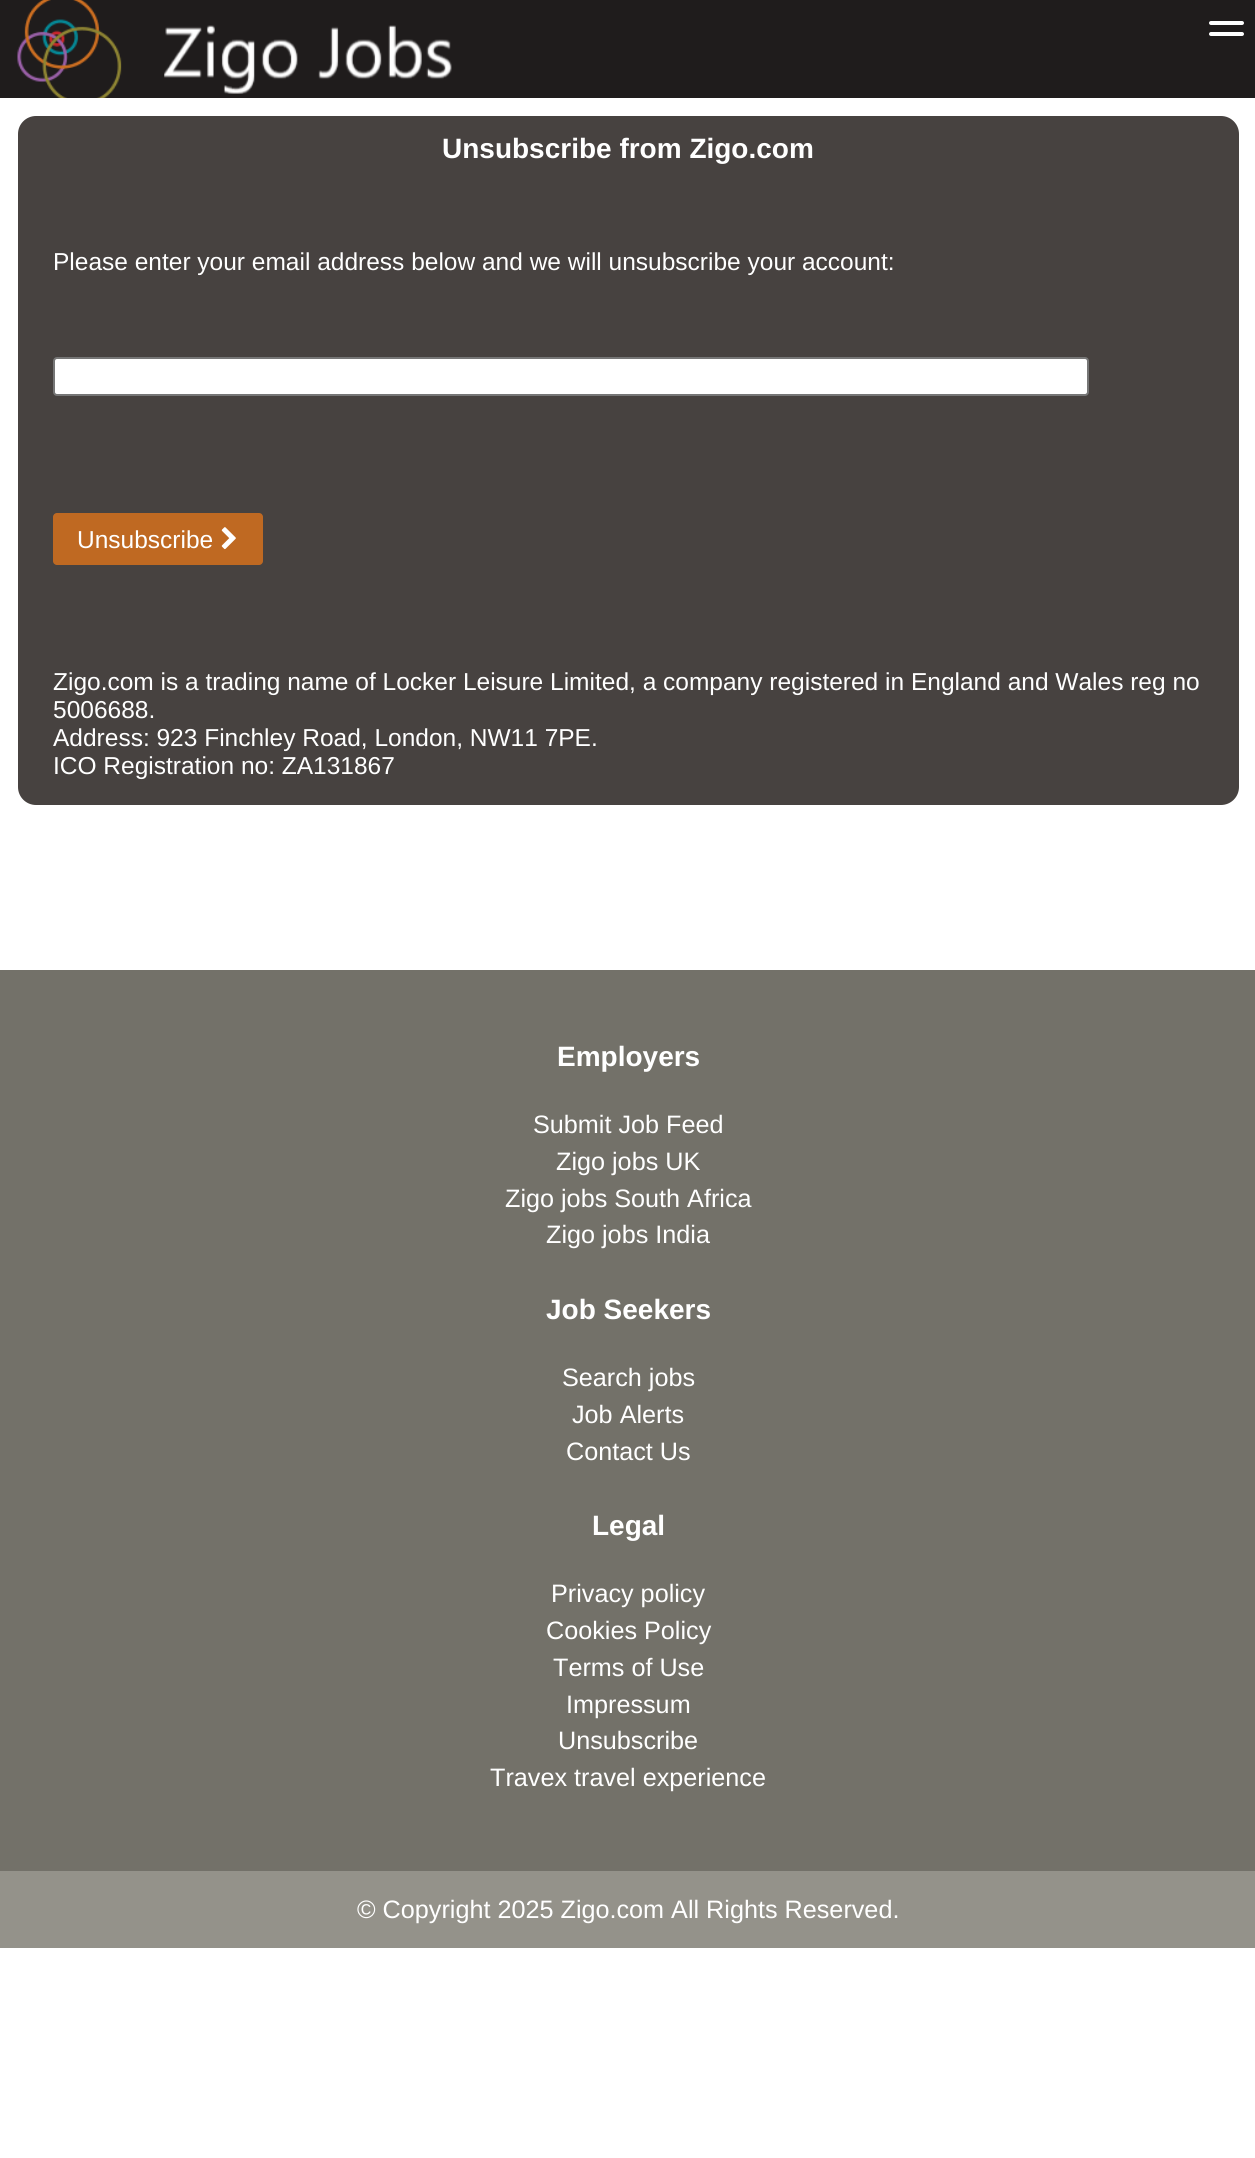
#include <cairo/cairo.h>
#include <math.h>
#include <stddef.h>

typedef struct { double x, y; const char *s; } line_t;
static cairo_t *cr;

static void rgb(unsigned color)
{
	cairo_set_source_rgb(cr, (color >> 16) / 255.0, (color >> 8 & 255) / 255.0, (color & 255) / 255.0);
}

static void rrect(double x, double y, double w, double h, double r)
{
	cairo_new_sub_path(cr);
	cairo_arc(cr, x + w - r, y + h - r, r, 0, M_PI / 2);
	cairo_arc(cr, x + r, y + h - r, r, M_PI / 2, M_PI);
	cairo_arc(cr, x + r, y + r, r, M_PI, 1.5 * M_PI);
	cairo_arc(cr, x + w - r, y + r, r, 1.5 * M_PI, 2 * M_PI);
	cairo_close_path(cr);
}

static void image(const char *path, double x, double y, double w, double h)
{
	cairo_surface_t *image = cairo_image_surface_create_from_png(path);
	cairo_save(cr);
	cairo_set_source_surface(cr, image, x, y);
	cairo_rectangle(cr, x, y, w, h);
	cairo_fill(cr);
	cairo_restore(cr);
	cairo_surface_destroy(image);
}

int main(void) {
	cairo_surface_t *surface = cairo_image_surface_create(CAIRO_FORMAT_RGB24, 1255, 2158);
	cr = cairo_create(surface);
	cairo_font_options_t *options = cairo_font_options_create();
	cairo_font_options_set_hint_metrics(options, CAIRO_HINT_METRICS_OFF);
	cairo_font_options_set_hint_style(options, CAIRO_HINT_STYLE_NONE);
	cairo_set_font_options(cr, options);
	cairo_set_miter_limit(cr, 4);
	rgb(0xffffff);
	cairo_paint(cr);
	rgb(0x1f1c1c);
	cairo_rectangle(cr, 0, 0, 1255, 98);
	cairo_fill(cr);
	image("img/1.png", 17, 0, 435, 98);
	rgb(0xffffff);
	rrect(1209, 21, 35, 4, 2);
	cairo_fill(cr);
	rrect(1209, 32, 35, 4, 2);
	cairo_fill(cr);
	rgb(0x474240);
	rrect(18, 116, 1221, 689, 18);
	cairo_fill(cr);
	rgb(0xffffff);
	rrect(54, 358, 1034, 37, 3);
	cairo_fill_preserve(cr);
	rgb(0x767676);
	cairo_stroke(cr);
	rgb(0xbf6922);
	rrect(53, 513, 210, 52, 4);
	cairo_fill(cr);
	image("img/2.png", 221, 527, 15, 23);
	rgb(0x737169);
	cairo_rectangle(cr, 0, 970, 1255, 901);
	cairo_fill(cr);
	rgb(0x94928a);
	cairo_rectangle(cr, 0, 1871, 1255, 77);
	cairo_fill(cr);
	cairo_select_font_face(cr, "Liberation Sans", CAIRO_FONT_SLANT_NORMAL, CAIRO_FONT_WEIGHT_BOLD);
	cairo_set_font_size(cr, 28);
	rgb(0xffffff);
	cairo_move_to(cr, 442, 158);
	cairo_show_text(cr, "Unsubscribe from Zigo.com");
	cairo_select_font_face(cr, "Liberation Sans", CAIRO_FONT_SLANT_NORMAL, CAIRO_FONT_WEIGHT_NORMAL);
	cairo_set_font_size(cr, 24.5);
	{
		static const line_t items[] = {
			{53, 270, "Please enter your email address below and we will unsubscribe your account:"},
			{77, 548, "Unsubscribe"},
			{53, 690, "Zigo.com is a trading name of Locker Leisure Limited, a company registered in England and Wales reg no"},
			{53, 718, "5006688."},
			{53, 746, "Address: 923 Finchley Road, London, NW11 7PE."},
			{53, 774, "ICO Registration no: ZA131867"},
		};
		for (size_t i = 0; i < sizeof items / sizeof *items; i++) {
			cairo_move_to(cr, items[i].x, items[i].y);
			cairo_show_text(cr, items[i].s);
		}
	}
	cairo_select_font_face(cr, "Liberation Sans", CAIRO_FONT_SLANT_NORMAL, CAIRO_FONT_WEIGHT_BOLD);
	cairo_set_font_size(cr, 28);
	cairo_move_to(cr, 557, 1066);
	cairo_show_text(cr, "Employers");
	cairo_select_font_face(cr, "Liberation Sans", CAIRO_FONT_SLANT_NORMAL, CAIRO_FONT_WEIGHT_NORMAL);
	cairo_set_font_size(cr, 25.2);
	{
		static const line_t items[] = {
			{533, 1133, "Submit Job Feed"},
			{556, 1170, "Zigo jobs UK"},
			{505, 1207, "Zigo jobs South Africa"},
			{546, 1243, "Zigo jobs India"},
		};
		for (size_t i = 0; i < sizeof items / sizeof *items; i++) {
			cairo_move_to(cr, items[i].x, items[i].y);
			cairo_show_text(cr, items[i].s);
		}
	}
	cairo_select_font_face(cr, "Liberation Sans", CAIRO_FONT_SLANT_NORMAL, CAIRO_FONT_WEIGHT_BOLD);
	cairo_set_font_size(cr, 28);
	cairo_move_to(cr, 546, 1319);
	cairo_show_text(cr, "Job Seekers");
	cairo_select_font_face(cr, "Liberation Sans", CAIRO_FONT_SLANT_NORMAL, CAIRO_FONT_WEIGHT_NORMAL);
	cairo_set_font_size(cr, 25.2);
	{
		static const line_t items[] = {
			{562, 1386, "Search jobs"},
			{572, 1423, "Job Alerts"},
			{566, 1460, "Contact Us"},
		};
		for (size_t i = 0; i < sizeof items / sizeof *items; i++) {
			cairo_move_to(cr, items[i].x, items[i].y);
			cairo_show_text(cr, items[i].s);
		}
	}
	cairo_select_font_face(cr, "Liberation Sans", CAIRO_FONT_SLANT_NORMAL, CAIRO_FONT_WEIGHT_BOLD);
	cairo_set_font_size(cr, 28);
	cairo_move_to(cr, 592, 1535);
	cairo_show_text(cr, "Legal");
	cairo_select_font_face(cr, "Liberation Sans", CAIRO_FONT_SLANT_NORMAL, CAIRO_FONT_WEIGHT_NORMAL);
	cairo_set_font_size(cr, 25.2);
	{
		static const line_t items[] = {
			{551, 1602, "Privacy policy"},
			{546, 1639, "Cookies Policy"},
			{553, 1676, "Terms of Use"},
			{566, 1713, "Impressum"},
			{558, 1749, "Unsubscribe"},
			{490, 1786, "Travex travel experience"},
			{357, 1918, "© Copyright 2025 Zigo.com All Rights Reserved."},
		};
		for (size_t i = 0; i < sizeof items / sizeof *items; i++) {
			cairo_move_to(cr, items[i].x, items[i].y);
			cairo_show_text(cr, items[i].s);
		}
	}
	cairo_surface_write_to_png(surface, "page.png");
	cairo_font_options_destroy(options);
	cairo_destroy(cr);
	cairo_surface_destroy(surface);
	return 0;
}
